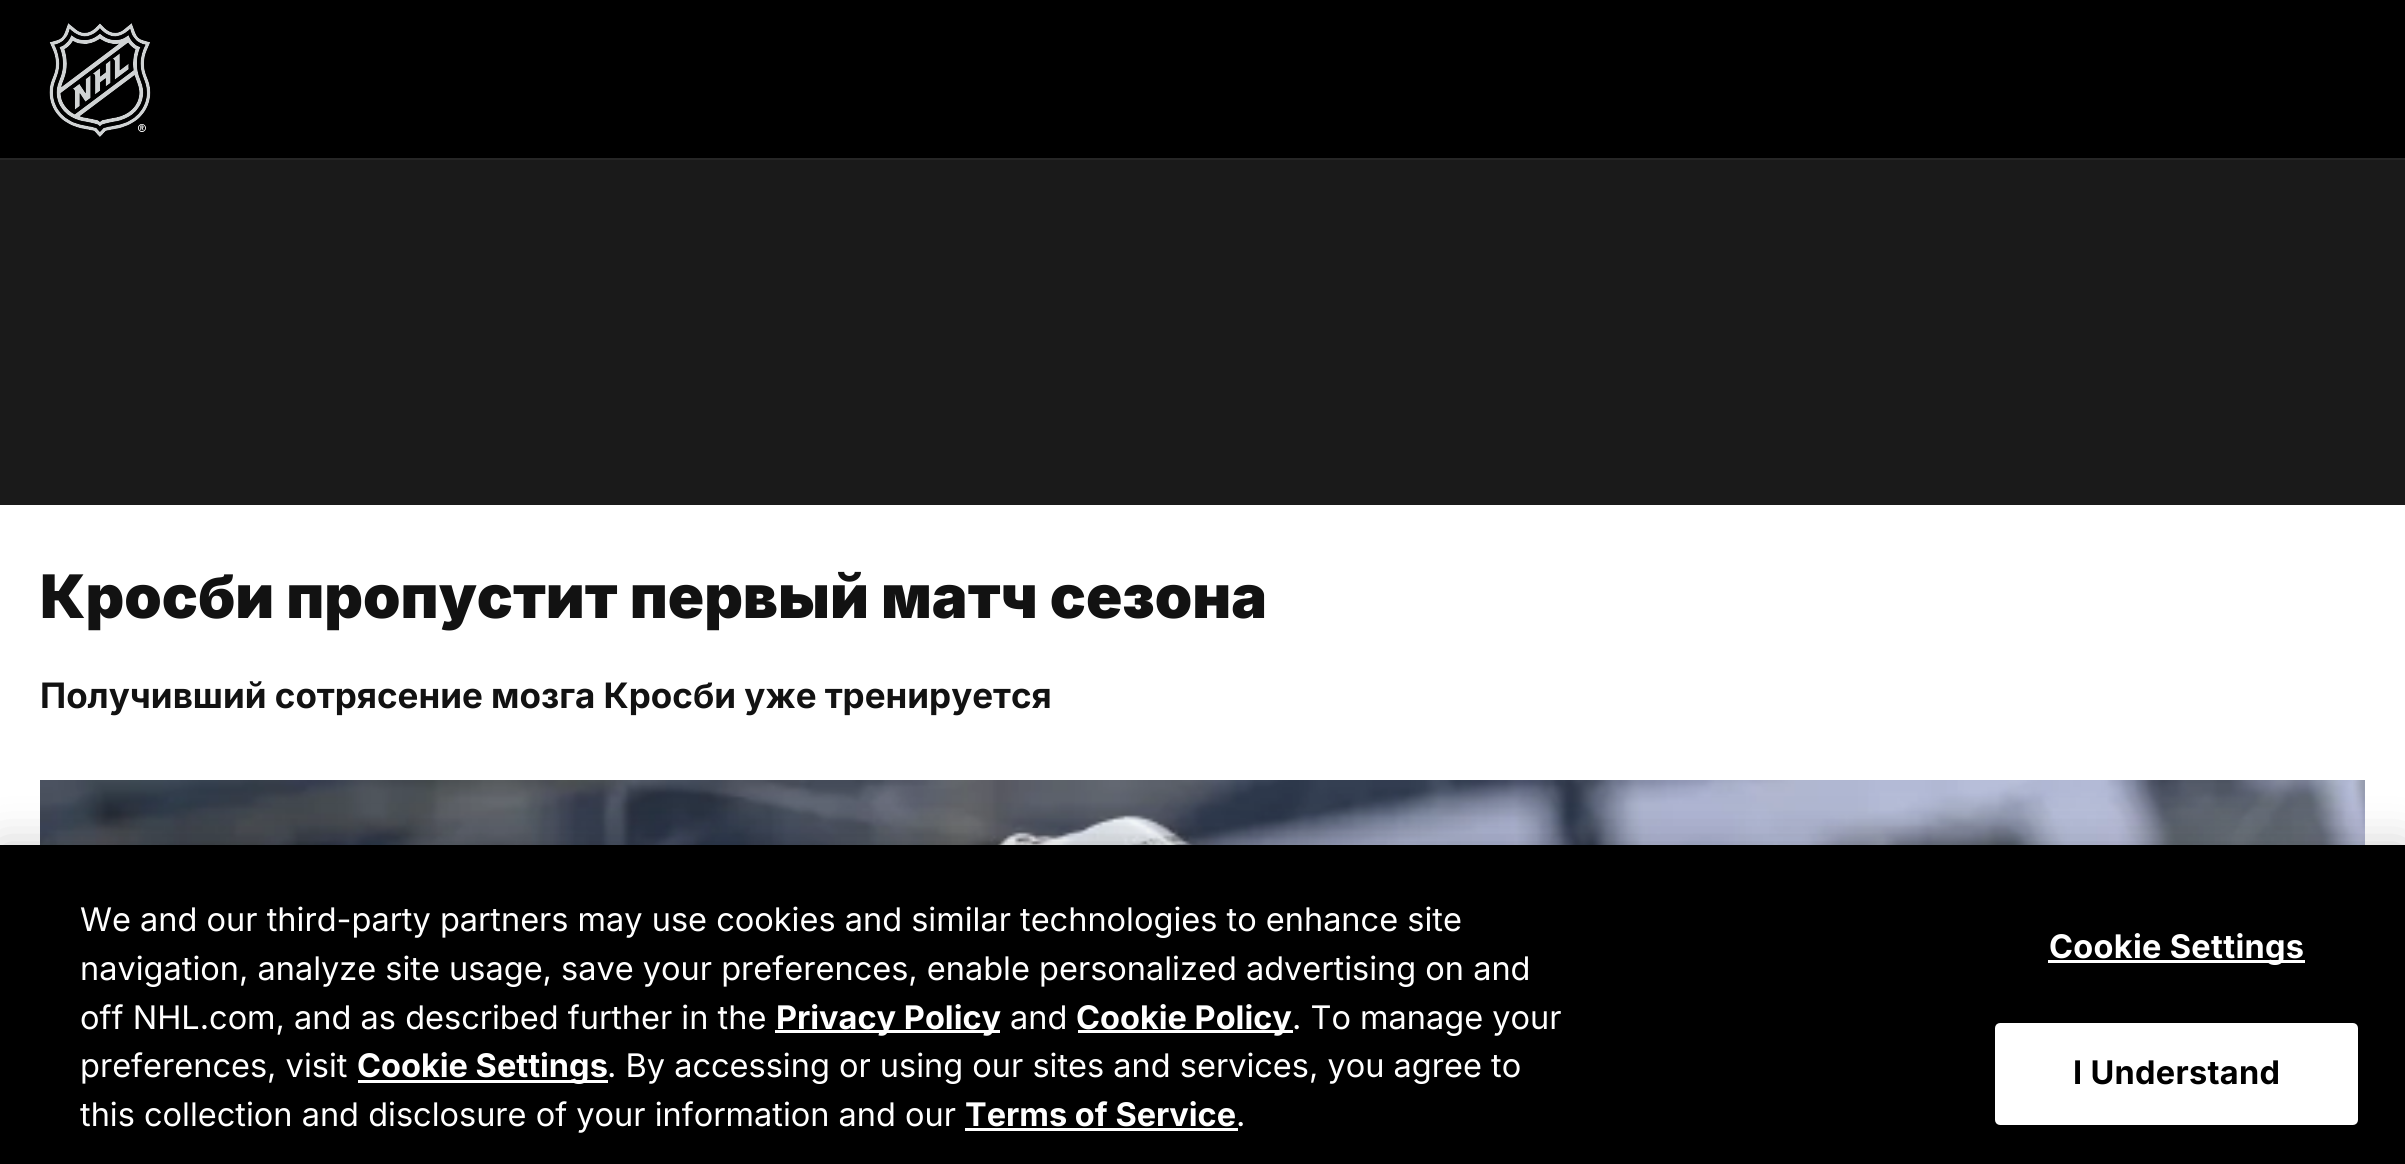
#include <cairo/cairo.h>
#include <math.h>
#include <stddef.h>

typedef struct { double x, y; const char *s; } line_t;
typedef struct { double x, y, w, h; unsigned color; } box_t;
static cairo_t *cr;

static void rgb(unsigned color)
{
	cairo_set_source_rgb(cr, (color >> 16) / 255.0, (color >> 8 & 255) / 255.0, (color & 255) / 255.0);
}

static void tracked(double x, double y, const char *s, double letter, double word)
{
	cairo_move_to(cr, x, y);
	while (*s) {
		char ch[5] = {0};
		int n = 0;
		do ch[n++] = *s++; while ((*s & 0xC0) == 0x80);
		cairo_show_text(cr, ch);
		cairo_rel_move_to(cr, letter + word * (*ch == ' '), 0);
	}
}

static void rrect(double x, double y, double w, double h, double r)
{
	cairo_new_sub_path(cr);
	cairo_arc(cr, x + w - r, y + h - r, r, 0, M_PI / 2);
	cairo_arc(cr, x + r, y + h - r, r, M_PI / 2, M_PI);
	cairo_arc(cr, x + r, y + r, r, M_PI, 1.5 * M_PI);
	cairo_arc(cr, x + w - r, y + r, r, 1.5 * M_PI, 2 * M_PI);
	cairo_close_path(cr);
}

static void soft_shadow(double x, double y, double w, double h, double r, double blur, double alpha)
{
	cairo_push_group_with_content(cr, CAIRO_CONTENT_ALPHA);
	cairo_set_operator(cr, CAIRO_OPERATOR_SOURCE);
	for (int i = 15; i >= -15 && fmin(w, h) + blur * i / 3 > 0; i -= 2) {
		double e = blur * i / 6;
		cairo_set_source_rgba(cr, 0, 0, 0, alpha * erfc((i - 1) / 8.5) / 2);
		rrect(x - e, y - e, w + 2 * e, h + 2 * e, fmax(0, fmin(r + e + blur * .6, fmin(w, h) / 2 + e)));
		cairo_fill(cr);
	}
	cairo_pattern_t *soft = cairo_pop_group(cr);
	cairo_mask(cr, soft);
	cairo_pattern_destroy(soft);
}

static void image(const char *path, double x, double y, double w, double h)
{
	cairo_surface_t *image = cairo_image_surface_create_from_png(path);
	cairo_save(cr);
	cairo_set_source_surface(cr, image, x, y);
	cairo_rectangle(cr, x, y, w, h);
	cairo_fill(cr);
	cairo_restore(cr);
	cairo_surface_destroy(image);
}

int main(void) {
	cairo_surface_t *surface = cairo_image_surface_create(CAIRO_FORMAT_RGB24, 2405, 1164);
	cr = cairo_create(surface);
	cairo_font_options_t *options = cairo_font_options_create();
	cairo_font_options_set_hint_metrics(options, CAIRO_HINT_METRICS_OFF);
	cairo_font_options_set_hint_style(options, CAIRO_HINT_STYLE_NONE);
	cairo_set_font_options(cr, options);
	cairo_set_miter_limit(cr, 4);
	rgb(0x1a1a1a);
	cairo_paint(cr);
	rgb(0x000000);
	cairo_rectangle(cr, 0, 0, 2405, 158);
	cairo_fill(cr);
	rgb(0x262626);
	cairo_rectangle(cr, 0, 158, 2405, 2);
	cairo_fill(cr);
	image("img/1.png", 49, 23, 102, 114);
	rgb(0xffffff);
	cairo_rectangle(cr, 0, 505, 2405, 340);
	cairo_fill(cr);
	image("img/2.png", 40, 780, 2325, 65);
	rgb(0x000000);
	soft_shadow(0, 845, 2405, 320, 0, 22.5, 0.2);
	{
		static const box_t items[] = {
			{0, 845, 2405, 319, 0x000000},
			{775, 1030, 225, 3, 0xffffff},
			{1078, 1030, 215, 3, 0xffffff},
			{358, 1080, 250, 3, 0xffffff},
			{965, 1128, 273, 3, 0xffffff},
			{2048, 960, 257, 3, 0xffffff},
		};
		for (size_t i = 0; i < sizeof items / sizeof *items; i++) {
			rgb(items[i].color);
			cairo_rectangle(cr, items[i].x, items[i].y, items[i].w, items[i].h);
			cairo_fill(cr);
		}
	}
	rrect(1996.5, 1024.5, 360, 99, 3.5);
	cairo_fill_preserve(cr);
	cairo_set_line_width(cr, 3);
	cairo_stroke(cr);
	cairo_select_font_face(cr, "Inter Black", CAIRO_FONT_SLANT_NORMAL, CAIRO_FONT_WEIGHT_NORMAL);
	cairo_set_font_size(cr, 60);
	rgb(0x121212);
	cairo_move_to(cr, 40, 618);
	cairo_show_text(cr, "Кросби пропустит первый матч сезона");
	cairo_select_font_face(cr, "Inter", CAIRO_FONT_SLANT_NORMAL, CAIRO_FONT_WEIGHT_BOLD);
	cairo_set_font_size(cr, 35);
	cairo_move_to(cr, 40, 708);
	cairo_show_text(cr, "Получивший сотрясение мозга Кросби уже тренируется");
	cairo_select_font_face(cr, "Inter", CAIRO_FONT_SLANT_NORMAL, CAIRO_FONT_WEIGHT_NORMAL);
	cairo_set_font_size(cr, 32.5);
	rgb(0xffffff);
	{
		static const line_t items[] = {
			{80, 931, "We and our third-party partners may use cookies and similar technologies to enhance site"},
			{80, 980, "navigation, analyze site usage, save your preferences, enable personalized advertising on and"},
			{80, 1029, "off NHL.com, and as described further in the"},
		};
		for (size_t i = 0; i < sizeof items / sizeof *items; i++) {
			cairo_move_to(cr, items[i].x, items[i].y);
			cairo_show_text(cr, items[i].s);
		}
	}
	cairo_select_font_face(cr, "Inter", CAIRO_FONT_SLANT_NORMAL, CAIRO_FONT_WEIGHT_BOLD);
	cairo_move_to(cr, 776, 1029);
	cairo_show_text(cr, "Privacy Policy");
	cairo_select_font_face(cr, "Inter", CAIRO_FONT_SLANT_NORMAL, CAIRO_FONT_WEIGHT_NORMAL);
	cairo_move_to(cr, 1010, 1029);
	cairo_show_text(cr, "and");
	cairo_select_font_face(cr, "Inter", CAIRO_FONT_SLANT_NORMAL, CAIRO_FONT_WEIGHT_BOLD);
	cairo_move_to(cr, 1076, 1029);
	cairo_show_text(cr, "Cookie Policy");
	cairo_select_font_face(cr, "Inter", CAIRO_FONT_SLANT_NORMAL, CAIRO_FONT_WEIGHT_NORMAL);
	cairo_move_to(cr, 1292, 1029);
	cairo_show_text(cr, ". To manage your");
	cairo_move_to(cr, 80, 1077);
	cairo_show_text(cr, "preferences, visit");
	cairo_select_font_face(cr, "Inter", CAIRO_FONT_SLANT_NORMAL, CAIRO_FONT_WEIGHT_BOLD);
	cairo_move_to(cr, 357, 1077);
	cairo_show_text(cr, "Cookie Settings");
	cairo_select_font_face(cr, "Inter", CAIRO_FONT_SLANT_NORMAL, CAIRO_FONT_WEIGHT_NORMAL);
	cairo_move_to(cr, 607, 1077);
	cairo_show_text(cr, ". By accessing or using our sites and services, you agree to");
	cairo_move_to(cr, 80, 1126);
	cairo_show_text(cr, "this collection and disclosure of your information and our");
	cairo_select_font_face(cr, "Inter", CAIRO_FONT_SLANT_NORMAL, CAIRO_FONT_WEIGHT_BOLD);
	cairo_move_to(cr, 965, 1126);
	cairo_show_text(cr, "Terms of Service");
	cairo_select_font_face(cr, "Inter", CAIRO_FONT_SLANT_NORMAL, CAIRO_FONT_WEIGHT_NORMAL);
	cairo_move_to(cr, 1236, 1126);
	cairo_show_text(cr, ".");
	cairo_select_font_face(cr, "Inter", CAIRO_FONT_SLANT_NORMAL, CAIRO_FONT_WEIGHT_BOLD);
	tracked(2049, 958, "Cookie Settings", 0.3, 0);
	rgb(0x000000);
	tracked(2073, 1084, "I Understand", 0.3, 0);
	cairo_surface_write_to_png(surface, "page.png");
	cairo_font_options_destroy(options);
	cairo_destroy(cr);
	cairo_surface_destroy(surface);
	return 0;
}
